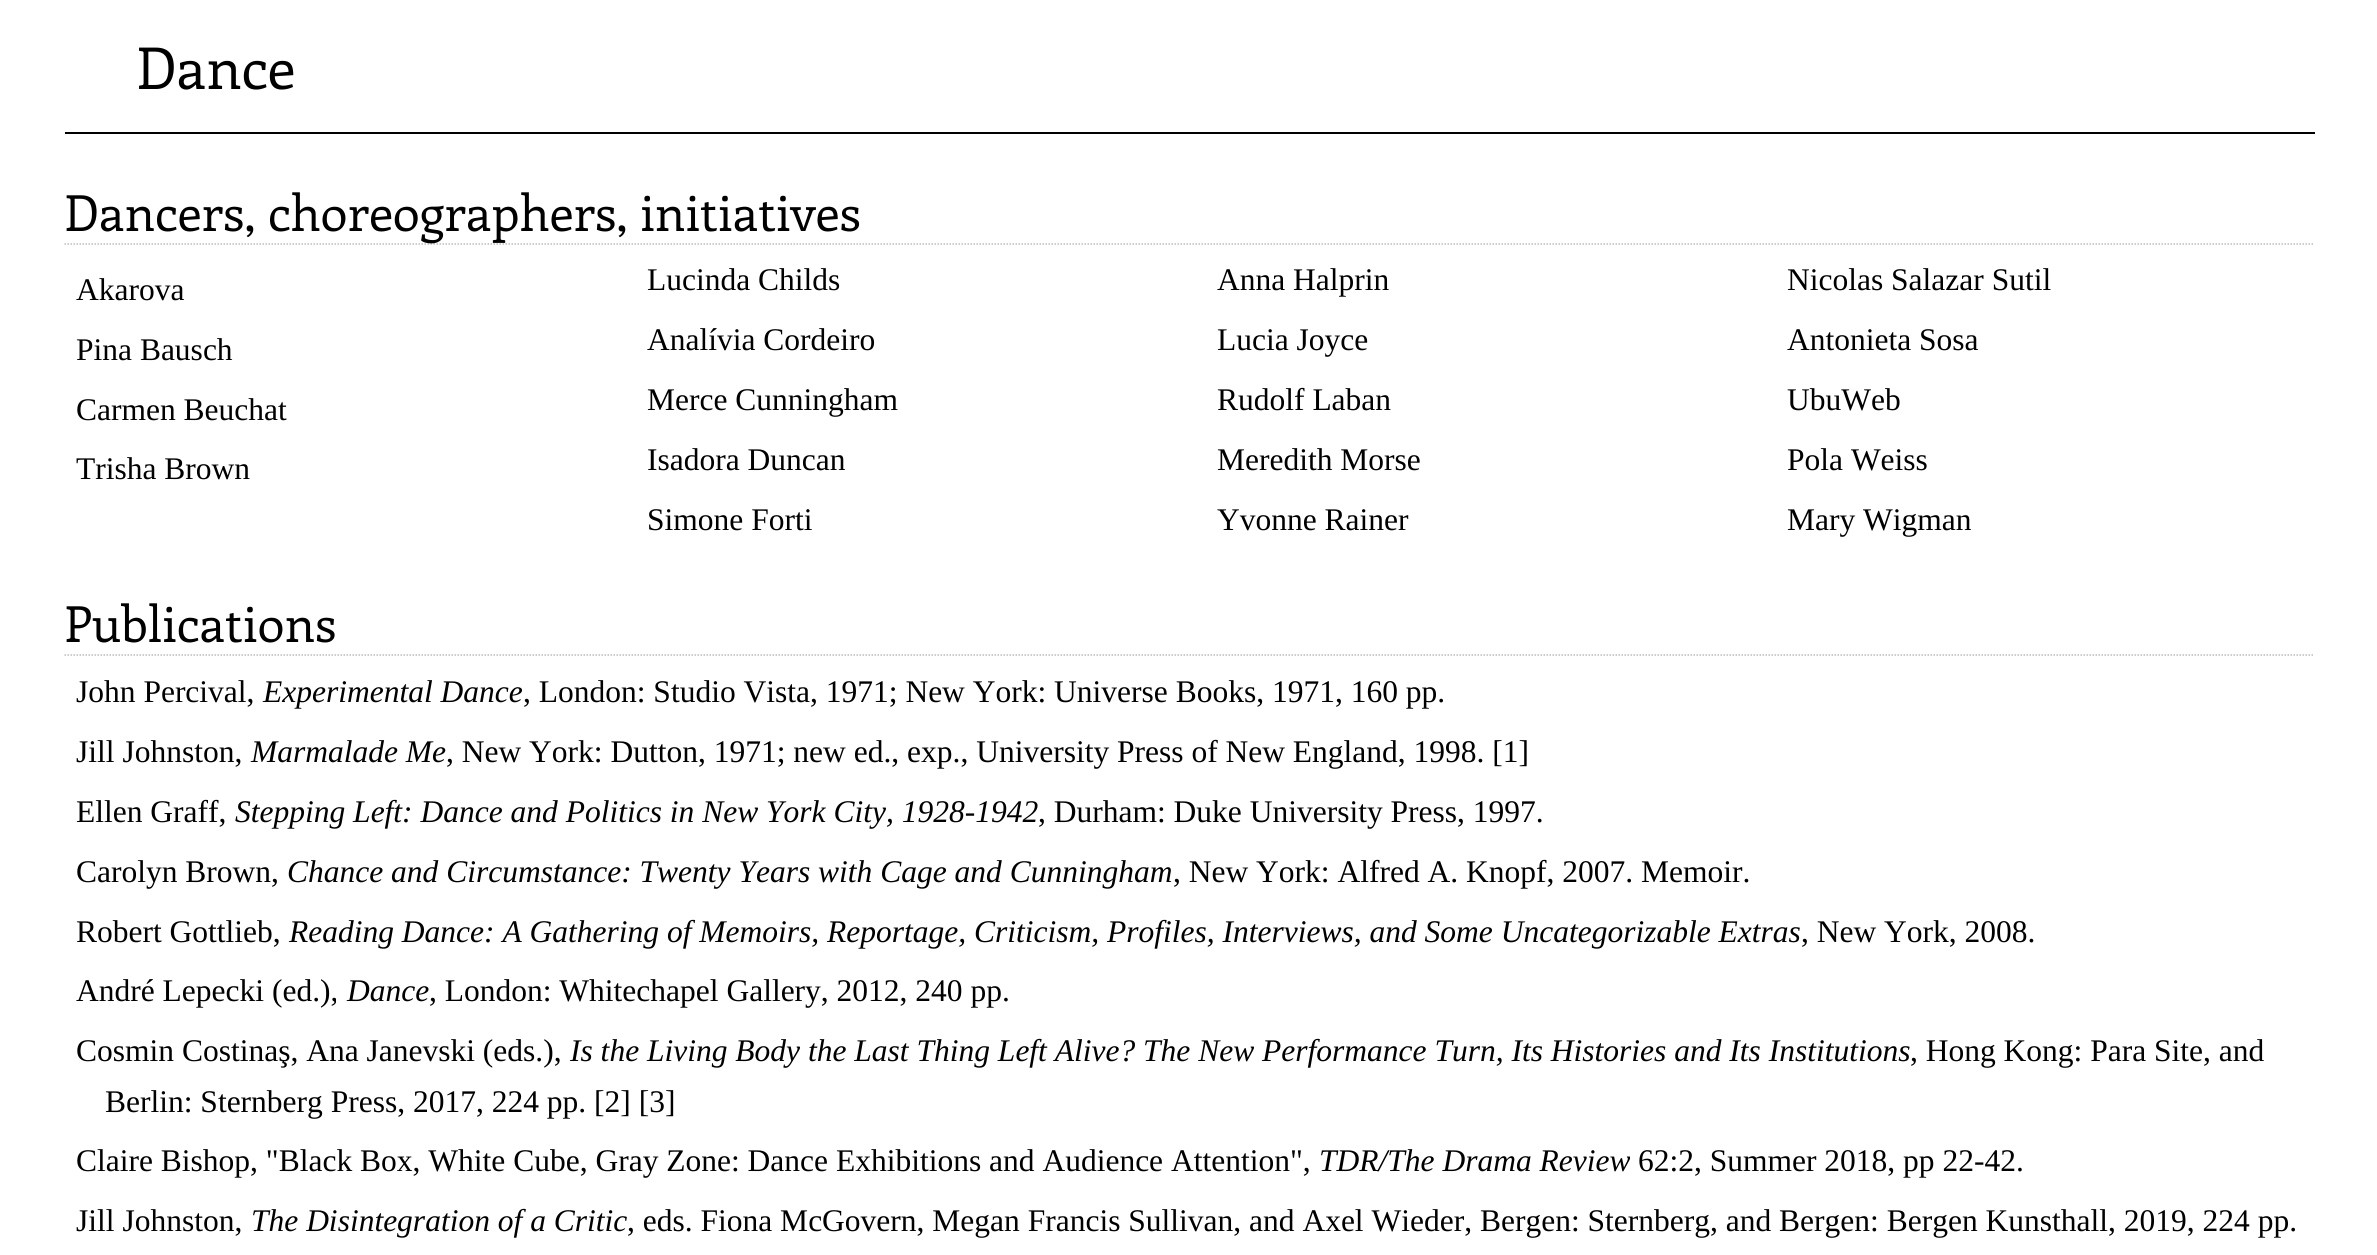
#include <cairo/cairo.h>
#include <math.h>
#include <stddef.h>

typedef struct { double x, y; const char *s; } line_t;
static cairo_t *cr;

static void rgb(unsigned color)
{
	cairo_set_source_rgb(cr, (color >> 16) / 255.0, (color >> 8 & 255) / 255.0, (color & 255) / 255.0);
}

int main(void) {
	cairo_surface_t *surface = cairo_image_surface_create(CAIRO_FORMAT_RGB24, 2377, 1255);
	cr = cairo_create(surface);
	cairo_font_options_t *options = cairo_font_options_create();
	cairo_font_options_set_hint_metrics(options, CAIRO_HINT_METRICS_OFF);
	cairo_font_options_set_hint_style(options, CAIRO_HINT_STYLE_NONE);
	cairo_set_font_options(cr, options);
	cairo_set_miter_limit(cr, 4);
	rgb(0xffffff);
	cairo_paint(cr);
	rgb(0x000000);
	cairo_rectangle(cr, 65, 132, 2250, 2);
	cairo_fill(cr);
	cairo_new_path(cr);
	cairo_move_to(cr, 64.5, 244);
	cairo_line_to(cr, 2314.5, 244);
	rgb(0xbbbbbb);
	cairo_set_line_width(cr, 1.5);
	cairo_set_dash(cr, (double[]){1.5, 1.5}, 2, 0);
	cairo_stroke(cr);
	cairo_new_path(cr);
	cairo_move_to(cr, 64.5, 655);
	cairo_line_to(cr, 2314.5, 655);
	cairo_stroke(cr);
	cairo_select_font_face(cr, "Enriqueta", CAIRO_FONT_SLANT_NORMAL, CAIRO_FONT_WEIGHT_NORMAL);
	cairo_set_font_size(cr, 57.5);
	rgb(0x000000);
	cairo_move_to(cr, 136, 89);
	cairo_show_text(cr, "Dance");
	cairo_set_font_size(cr, 49.6);
	cairo_move_to(cr, 64, 231);
	cairo_show_text(cr, "Dancers, choreographers, initiatives");
	cairo_select_font_face(cr, "Liberation Serif", CAIRO_FONT_SLANT_NORMAL, CAIRO_FONT_WEIGHT_NORMAL);
	cairo_set_font_size(cr, 31.5);
	{
		static const line_t items[] = {
			{76, 300, "Akarova"},
			{647, 290, "Lucinda Childs"},
			{1217, 290, "Anna Halprin"},
			{1787, 290, "Nicolas Salazar Sutil"},
			{76, 360, "Pina Bausch"},
			{647, 350, "Analívia Cordeiro"},
			{1217, 350, "Lucia Joyce"},
			{1787, 350, "Antonieta Sosa"},
			{76, 420, "Carmen Beuchat"},
			{647, 410, "Merce Cunningham"},
			{1217, 410, "Rudolf Laban"},
			{1787, 410, "UbuWeb"},
			{76, 479, "Trisha Brown"},
			{647, 470, "Isadora Duncan"},
			{1217, 470, "Meredith Morse"},
			{1787, 470, "Pola Weiss"},
			{647, 530, "Simone Forti"},
			{1217, 530, "Yvonne Rainer"},
			{1787, 530, "Mary Wigman"},
		};
		for (size_t i = 0; i < sizeof items / sizeof *items; i++) {
			cairo_move_to(cr, items[i].x, items[i].y);
			cairo_show_text(cr, items[i].s);
		}
	}
	cairo_select_font_face(cr, "Enriqueta", CAIRO_FONT_SLANT_NORMAL, CAIRO_FONT_WEIGHT_NORMAL);
	cairo_set_font_size(cr, 49.6);
	cairo_move_to(cr, 64, 642);
	cairo_show_text(cr, "Publications");
	cairo_select_font_face(cr, "Liberation Serif", CAIRO_FONT_SLANT_NORMAL, CAIRO_FONT_WEIGHT_NORMAL);
	cairo_set_font_size(cr, 31.5);
	cairo_move_to(cr, 76, 702);
	cairo_show_text(cr, "John Percival,");
	cairo_select_font_face(cr, "Liberation Serif", CAIRO_FONT_SLANT_ITALIC, CAIRO_FONT_WEIGHT_NORMAL);
	cairo_move_to(cr, 263, 702);
	cairo_show_text(cr, "Experimental Dance");
	cairo_select_font_face(cr, "Liberation Serif", CAIRO_FONT_SLANT_NORMAL, CAIRO_FONT_WEIGHT_NORMAL);
	cairo_move_to(cr, 523, 702);
	cairo_show_text(cr, ", London: Studio Vista, 1971; New York: Universe Books, 1971, 160 pp.");
	cairo_move_to(cr, 76, 762);
	cairo_show_text(cr, "Jill Johnston,");
	cairo_select_font_face(cr, "Liberation Serif", CAIRO_FONT_SLANT_ITALIC, CAIRO_FONT_WEIGHT_NORMAL);
	cairo_move_to(cr, 251, 762);
	cairo_show_text(cr, "Marmalade Me");
	cairo_select_font_face(cr, "Liberation Serif", CAIRO_FONT_SLANT_NORMAL, CAIRO_FONT_WEIGHT_NORMAL);
	cairo_move_to(cr, 446, 762);
	cairo_show_text(cr, ", New York: Dutton, 1971; new ed., exp., University Press of New England, 1998. [1]");
	cairo_move_to(cr, 76, 822);
	cairo_show_text(cr, "Ellen Graff,");
	cairo_select_font_face(cr, "Liberation Serif", CAIRO_FONT_SLANT_ITALIC, CAIRO_FONT_WEIGHT_NORMAL);
	cairo_move_to(cr, 235, 822);
	cairo_show_text(cr, "Stepping Left: Dance and Politics in New York City, 1928-1942");
	cairo_select_font_face(cr, "Liberation Serif", CAIRO_FONT_SLANT_NORMAL, CAIRO_FONT_WEIGHT_NORMAL);
	cairo_move_to(cr, 1038, 822);
	cairo_show_text(cr, ", Durham: Duke University Press, 1997.");
	cairo_move_to(cr, 76, 882);
	cairo_show_text(cr, "Carolyn Brown,");
	cairo_select_font_face(cr, "Liberation Serif", CAIRO_FONT_SLANT_ITALIC, CAIRO_FONT_WEIGHT_NORMAL);
	cairo_move_to(cr, 287, 882);
	cairo_show_text(cr, "Chance and Circumstance: Twenty Years with Cage and Cunningham");
	cairo_select_font_face(cr, "Liberation Serif", CAIRO_FONT_SLANT_NORMAL, CAIRO_FONT_WEIGHT_NORMAL);
	cairo_move_to(cr, 1173, 882);
	cairo_show_text(cr, ", New York: Alfred A. Knopf, 2007. Memoir.");
	cairo_move_to(cr, 76, 942);
	cairo_show_text(cr, "Robert Gottlieb,");
	cairo_select_font_face(cr, "Liberation Serif", CAIRO_FONT_SLANT_ITALIC, CAIRO_FONT_WEIGHT_NORMAL);
	cairo_move_to(cr, 289, 942);
	cairo_show_text(cr, "Reading Dance: A Gathering of Memoirs, Reportage, Criticism, Profiles, Interviews, and Some Uncategorizable Extras");
	cairo_select_font_face(cr, "Liberation Serif", CAIRO_FONT_SLANT_NORMAL, CAIRO_FONT_WEIGHT_NORMAL);
	cairo_move_to(cr, 1801, 942);
	cairo_show_text(cr, ", New York, 2008.");
	cairo_move_to(cr, 76, 1001);
	cairo_show_text(cr, "André Lepecki (ed.),");
	cairo_select_font_face(cr, "Liberation Serif", CAIRO_FONT_SLANT_ITALIC, CAIRO_FONT_WEIGHT_NORMAL);
	cairo_move_to(cr, 347, 1001);
	cairo_show_text(cr, "Dance");
	cairo_select_font_face(cr, "Liberation Serif", CAIRO_FONT_SLANT_NORMAL, CAIRO_FONT_WEIGHT_NORMAL);
	cairo_move_to(cr, 429, 1001);
	cairo_show_text(cr, ", London: Whitechapel Gallery, 2012, 240 pp.");
	cairo_move_to(cr, 76, 1061);
	cairo_show_text(cr, "Cosmin Costinaş, Ana Janevski (eds.),");
	cairo_select_font_face(cr, "Liberation Serif", CAIRO_FONT_SLANT_ITALIC, CAIRO_FONT_WEIGHT_NORMAL);
	cairo_move_to(cr, 570, 1061);
	cairo_show_text(cr, "Is the Living Body the Last Thing Left Alive? The New Performance Turn, Its Histories and Its Institutions");
	cairo_select_font_face(cr, "Liberation Serif", CAIRO_FONT_SLANT_NORMAL, CAIRO_FONT_WEIGHT_NORMAL);
	{
		static const line_t items[] = {
			{1910, 1061, ", Hong Kong: Para Site, and"},
			{105, 1112, "Berlin: Sternberg Press, 2017, 224 pp. [2] [3]"},
			{76, 1171, "Claire Bishop, \"Black Box, White Cube, Gray Zone: Dance Exhibitions and Audience Attention\","},
		};
		for (size_t i = 0; i < sizeof items / sizeof *items; i++) {
			cairo_move_to(cr, items[i].x, items[i].y);
			cairo_show_text(cr, items[i].s);
		}
	}
	cairo_select_font_face(cr, "Liberation Serif", CAIRO_FONT_SLANT_ITALIC, CAIRO_FONT_WEIGHT_NORMAL);
	cairo_move_to(cr, 1319, 1171);
	cairo_show_text(cr, "TDR/The Drama Review");
	cairo_select_font_face(cr, "Liberation Serif", CAIRO_FONT_SLANT_NORMAL, CAIRO_FONT_WEIGHT_NORMAL);
	cairo_move_to(cr, 1638, 1171);
	cairo_show_text(cr, "62:2, Summer 2018, pp 22-42.");
	cairo_move_to(cr, 76, 1231);
	cairo_show_text(cr, "Jill Johnston,");
	cairo_select_font_face(cr, "Liberation Serif", CAIRO_FONT_SLANT_ITALIC, CAIRO_FONT_WEIGHT_NORMAL);
	cairo_move_to(cr, 251, 1231);
	cairo_show_text(cr, "The Disintegration of a Critic");
	cairo_select_font_face(cr, "Liberation Serif", CAIRO_FONT_SLANT_NORMAL, CAIRO_FONT_WEIGHT_NORMAL);
	cairo_move_to(cr, 627, 1231);
	cairo_show_text(cr, ", eds. Fiona McGovern, Megan Francis Sullivan, and Axel Wieder, Bergen: Sternberg, and Bergen: Bergen Kunsthall, 2019, 224 pp.");
	cairo_surface_write_to_png(surface, "page.png");
	cairo_font_options_destroy(options);
	cairo_destroy(cr);
	cairo_surface_destroy(surface);
	return 0;
}
